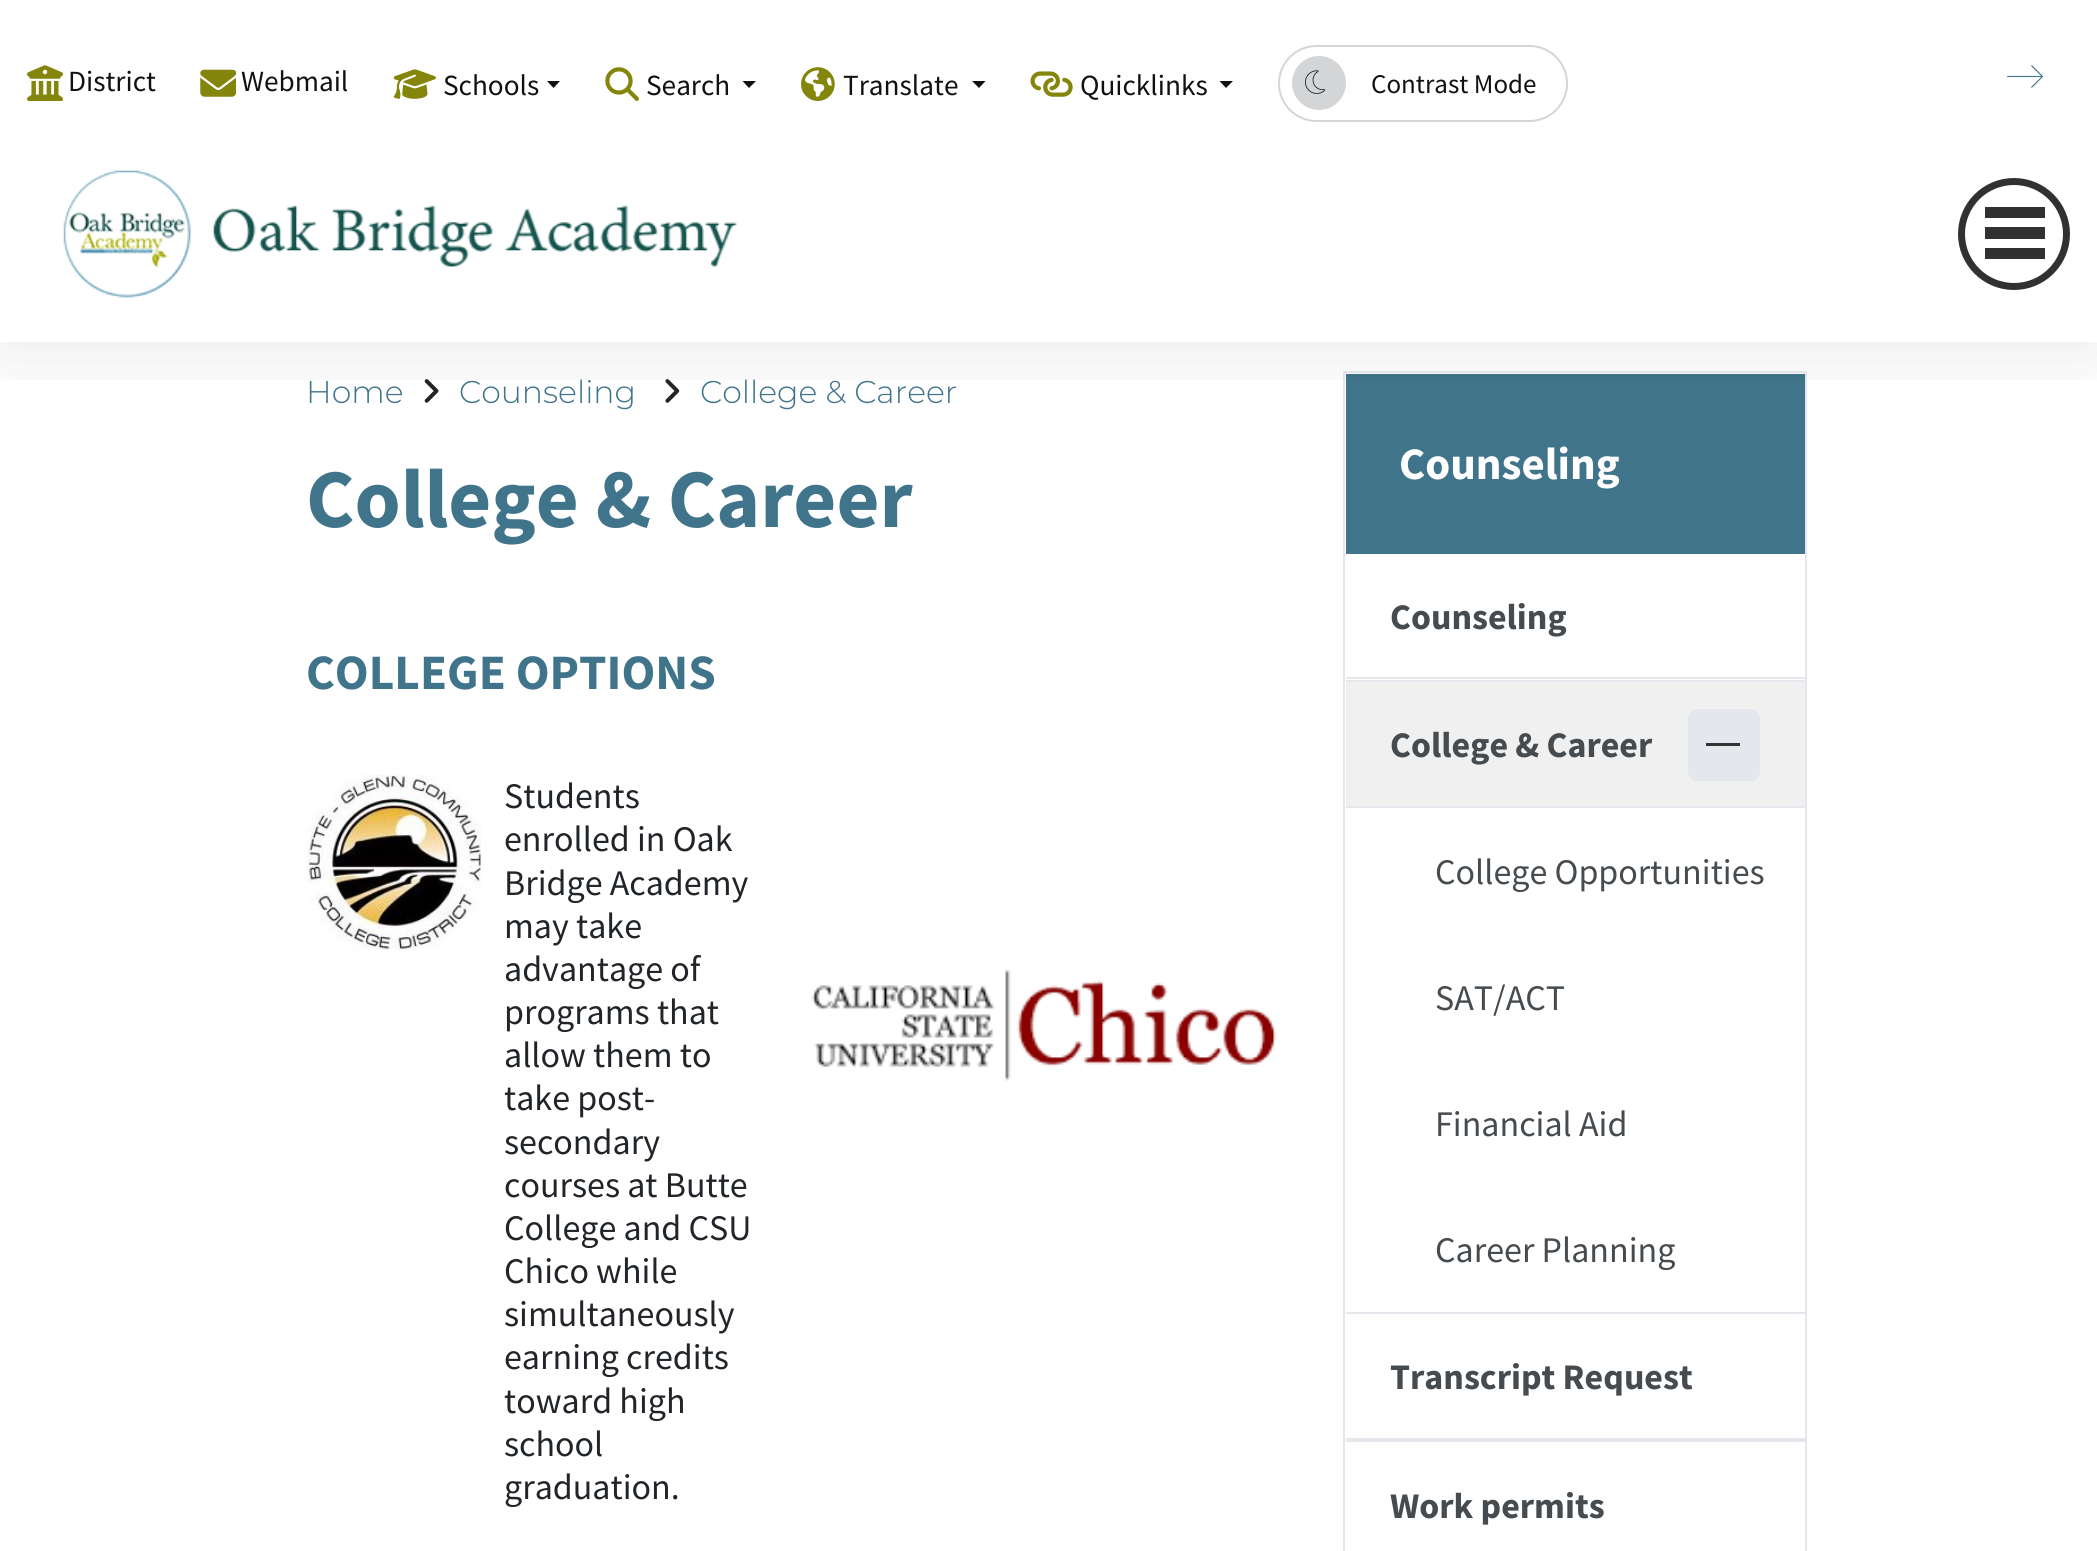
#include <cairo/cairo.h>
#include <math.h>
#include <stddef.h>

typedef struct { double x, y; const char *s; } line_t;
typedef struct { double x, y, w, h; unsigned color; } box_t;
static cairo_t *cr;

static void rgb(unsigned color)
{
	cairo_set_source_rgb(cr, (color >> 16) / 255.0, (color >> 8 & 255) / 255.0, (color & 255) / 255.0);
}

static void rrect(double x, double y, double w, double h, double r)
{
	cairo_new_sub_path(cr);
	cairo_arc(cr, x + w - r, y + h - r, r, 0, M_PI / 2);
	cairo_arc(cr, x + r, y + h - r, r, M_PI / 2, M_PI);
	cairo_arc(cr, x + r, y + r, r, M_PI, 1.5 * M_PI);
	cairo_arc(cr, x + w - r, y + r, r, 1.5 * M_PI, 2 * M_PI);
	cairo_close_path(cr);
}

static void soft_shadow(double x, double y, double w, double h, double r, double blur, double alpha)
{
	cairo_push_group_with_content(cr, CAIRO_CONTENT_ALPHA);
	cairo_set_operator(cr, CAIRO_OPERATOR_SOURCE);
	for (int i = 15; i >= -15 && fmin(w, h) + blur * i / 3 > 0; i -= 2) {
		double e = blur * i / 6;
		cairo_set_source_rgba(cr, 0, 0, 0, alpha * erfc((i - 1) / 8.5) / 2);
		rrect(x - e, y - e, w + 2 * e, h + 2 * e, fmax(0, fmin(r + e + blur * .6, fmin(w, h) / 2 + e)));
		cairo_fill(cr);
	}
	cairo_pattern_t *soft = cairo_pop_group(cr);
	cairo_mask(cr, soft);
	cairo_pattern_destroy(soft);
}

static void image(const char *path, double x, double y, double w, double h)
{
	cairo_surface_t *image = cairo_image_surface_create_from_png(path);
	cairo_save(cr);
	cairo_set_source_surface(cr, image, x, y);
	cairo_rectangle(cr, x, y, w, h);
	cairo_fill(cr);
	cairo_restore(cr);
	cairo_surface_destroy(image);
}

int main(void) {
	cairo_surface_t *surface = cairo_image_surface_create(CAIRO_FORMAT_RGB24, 2097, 1551);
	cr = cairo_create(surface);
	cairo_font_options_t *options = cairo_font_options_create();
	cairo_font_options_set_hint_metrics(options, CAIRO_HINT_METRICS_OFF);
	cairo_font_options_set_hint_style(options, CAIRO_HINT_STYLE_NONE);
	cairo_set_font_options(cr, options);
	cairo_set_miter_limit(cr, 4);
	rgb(0xffffff);
	cairo_paint(cr);
	image("img/10.png", 424, 379, 15, 24);
	image("img/11.png", 665, 379, 15, 24);
	cairo_rectangle(cr, 1344, 372, 462, 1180);
	rgb(0xe4e8ed);
	cairo_stroke(cr);
	rgb(0x40748a);
	cairo_rectangle(cr, 1346, 374, 459, 180);
	cairo_fill(cr);
	cairo_save(cr);
	cairo_rectangle(cr, 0, 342, 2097, 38);
	cairo_clip(cr);
	rgb(0x000000);
	soft_shadow(0, 0, 2097, 342, 0, 45, 0.1);
	cairo_restore(cr);
	image("img/1.png", 27, 65, 36, 36);
	image("img/2.png", 200, 69, 36, 28);
	image("img/3.png", 393, 69, 43, 30);
	rgb(0x111111);
	cairo_new_path(cr);
	cairo_move_to(cr, 547, 81);
	cairo_line_to(cr, 560, 81);
	cairo_line_to(cr, 553.5, 88);
	cairo_close_path(cr);
	cairo_fill(cr);
	image("img/4.png", 605, 67, 34, 34);
	cairo_new_path(cr);
	cairo_move_to(cr, 742.5, 81);
	cairo_line_to(cr, 756, 81);
	cairo_line_to(cr, 749, 88);
	cairo_close_path(cr);
	cairo_fill(cr);
	image("img/5.png", 801, 67, 34, 34);
	cairo_new_path(cr);
	cairo_move_to(cr, 972, 81);
	cairo_line_to(cr, 985.5, 81);
	cairo_line_to(cr, 979, 88);
	cairo_close_path(cr);
	cairo_fill(cr);
	image("img/6.png", 1030, 71, 43, 26);
	cairo_new_path(cr);
	cairo_move_to(cr, 1219.5, 81);
	cairo_line_to(cr, 1233, 81);
	cairo_line_to(cr, 1226, 88);
	cairo_close_path(cr);
	cairo_fill(cr);
	rrect(1279, 46, 288, 75, 37.5);
	rgb(0xd4d5d6);
	cairo_stroke(cr);
	cairo_arc(cr, 1319, 83, 27, 0, 2 * M_PI);
	cairo_fill(cr);
	image("img/7.png", 1305, 70, 21, 24);
	image("img/8.png", 2007, 65, 36, 23);
	image("img/9.png", 63, 170, 675, 128);
	cairo_arc(cr, 2014, 234, 52.5, 0, 2 * M_PI);
	rgb(0x313131);
	cairo_set_line_width(cr, 7);
	cairo_stroke(cr);
	{
		static const box_t items[] = {
			{1985, 207, 60, 11, 0x313131},
			{1985, 227, 60, 12, 0x313131},
			{1985, 248, 60, 11, 0x313131},
		};
		for (size_t i = 0; i < sizeof items / sizeof *items; i++) {
			rgb(items[i].color);
			cairo_rectangle(cr, items[i].x, items[i].y, items[i].w, items[i].h);
			cairo_fill(cr);
		}
	}
	image("img/12.png", 306, 774, 176, 176);
	image("img/13.png", 811, 969, 466, 112);
	{
		static const box_t items[] = {
			{1346, 680, 459, 2, 0xe4e8ed},
			{1346, 677, 459, 2, 0xe4e8ed},
			{1346, 1312, 459, 2, 0xe4e8ed},
			{1346, 682, 459, 124, 0xf0f0f0},
			{1346, 806, 459, 2, 0xe4e8ed},
		};
		for (size_t i = 0; i < sizeof items / sizeof *items; i++) {
			rgb(items[i].color);
			cairo_rectangle(cr, items[i].x, items[i].y, items[i].w, items[i].h);
			cairo_fill(cr);
		}
	}
	rrect(1688, 709, 72, 72, 9);
	cairo_fill(cr);
	rgb(0x333333);
	cairo_rectangle(cr, 1706, 743, 34, 3);
	cairo_fill(cr);
	rgb(0xe4e8ed);
	cairo_rectangle(cr, 1346, 1438, 459, 4);
	cairo_fill(cr);
	cairo_select_font_face(cr, "Source Sans Pro", CAIRO_FONT_SLANT_NORMAL, CAIRO_FONT_WEIGHT_NORMAL);
	cairo_set_font_size(cr, 29.25);
	rgb(0x111111);
	{
		static const line_t items[] = {
			{68, 91, "District"},
			{241, 91, "Webmail"},
			{443, 95, "Schools"},
			{646, 95, "Search"},
			{843, 95, "Translate"},
			{1080, 95, "Quicklinks"},
		};
		for (size_t i = 0; i < sizeof items / sizeof *items; i++) {
			cairo_move_to(cr, items[i].x, items[i].y);
			cairo_show_text(cr, items[i].s);
		}
	}
	cairo_set_font_size(cr, 27);
	cairo_move_to(cr, 1371, 93);
	cairo_show_text(cr, "Contrast Mode");
	cairo_select_font_face(cr, "Montserrat Light", CAIRO_FONT_SLANT_NORMAL, CAIRO_FONT_WEIGHT_NORMAL);
	cairo_set_font_size(cr, 31.5);
	rgb(0x40748a);
	{
		static const line_t items[] = {
			{306, 403, "Home"},
			{459, 403, "Counseling"},
			{700, 403, "College & Career"},
		};
		for (size_t i = 0; i < sizeof items / sizeof *items; i++) {
			cairo_move_to(cr, items[i].x, items[i].y);
			cairo_show_text(cr, items[i].s);
		}
	}
	cairo_select_font_face(cr, "Source Sans Pro", CAIRO_FONT_SLANT_NORMAL, CAIRO_FONT_WEIGHT_BOLD);
	cairo_set_font_size(cr, 83.25);
	cairo_move_to(cr, 306, 527);
	cairo_show_text(cr, "College & Career");
	cairo_set_font_size(cr, 49.5);
	cairo_move_to(cr, 306, 689);
	cairo_show_text(cr, "COLLEGE OPTIONS");
	cairo_select_font_face(cr, "Source Sans Pro", CAIRO_FONT_SLANT_NORMAL, CAIRO_FONT_WEIGHT_NORMAL);
	cairo_set_font_size(cr, 36);
	rgb(0x212529);
	{
		static const line_t items[] = {
			{504, 808, "Students"},
			{504, 851, "enrolled in Oak"},
			{504, 895, "Bridge Academy"},
			{504, 938, "may take"},
			{504, 981, "advantage of"},
			{504, 1024, "programs that"},
			{504, 1067, "allow them to"},
			{504, 1110, "take post-"},
			{504, 1154, "secondary"},
			{504, 1197, "courses at Butte"},
			{504, 1240, "College and CSU"},
			{504, 1283, "Chico while"},
			{504, 1326, "simultaneously"},
			{504, 1369, "earning credits"},
			{504, 1413, "toward high"},
			{504, 1456, "school"},
			{504, 1499, "graduation."},
		};
		for (size_t i = 0; i < sizeof items / sizeof *items; i++) {
			cairo_move_to(cr, items[i].x, items[i].y);
			cairo_show_text(cr, items[i].s);
		}
	}
	cairo_select_font_face(cr, "Source Sans Pro", CAIRO_FONT_SLANT_NORMAL, CAIRO_FONT_WEIGHT_BOLD);
	cairo_set_font_size(cr, 45);
	rgb(0xffffff);
	cairo_move_to(cr, 1399, 479);
	cairo_show_text(cr, "Counseling");
	cairo_set_font_size(cr, 36);
	rgb(0x464b4f);
	cairo_move_to(cr, 1390, 629);
	cairo_show_text(cr, "Counseling");
	cairo_move_to(cr, 1390, 757);
	cairo_show_text(cr, "College & Career");
	cairo_select_font_face(cr, "Source Sans Pro", CAIRO_FONT_SLANT_NORMAL, CAIRO_FONT_WEIGHT_NORMAL);
	{
		static const line_t items[] = {
			{1435, 884, "College Opportunities"},
			{1435, 1010, "SAT/ACT"},
			{1435, 1136, "Financial Aid"},
			{1435, 1262, "Career Planning"},
		};
		for (size_t i = 0; i < sizeof items / sizeof *items; i++) {
			cairo_move_to(cr, items[i].x, items[i].y);
			cairo_show_text(cr, items[i].s);
		}
	}
	cairo_select_font_face(cr, "Source Sans Pro", CAIRO_FONT_SLANT_NORMAL, CAIRO_FONT_WEIGHT_BOLD);
	cairo_move_to(cr, 1390, 1389);
	cairo_show_text(cr, "Transcript Request");
	cairo_move_to(cr, 1390, 1518);
	cairo_show_text(cr, "Work permits");
	cairo_surface_write_to_png(surface, "page.png");
	cairo_font_options_destroy(options);
	cairo_destroy(cr);
	cairo_surface_destroy(surface);
	return 0;
}
